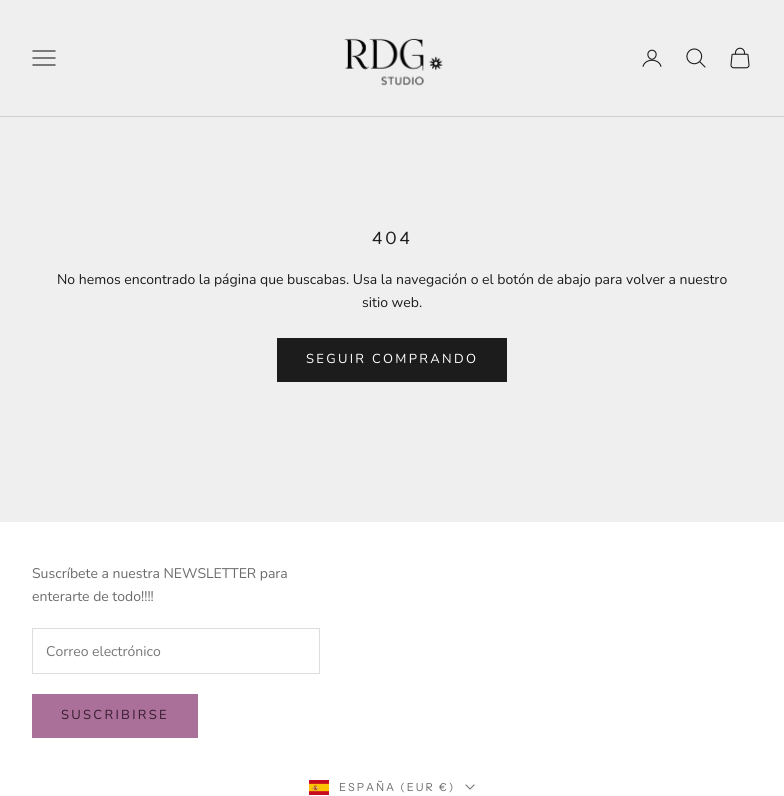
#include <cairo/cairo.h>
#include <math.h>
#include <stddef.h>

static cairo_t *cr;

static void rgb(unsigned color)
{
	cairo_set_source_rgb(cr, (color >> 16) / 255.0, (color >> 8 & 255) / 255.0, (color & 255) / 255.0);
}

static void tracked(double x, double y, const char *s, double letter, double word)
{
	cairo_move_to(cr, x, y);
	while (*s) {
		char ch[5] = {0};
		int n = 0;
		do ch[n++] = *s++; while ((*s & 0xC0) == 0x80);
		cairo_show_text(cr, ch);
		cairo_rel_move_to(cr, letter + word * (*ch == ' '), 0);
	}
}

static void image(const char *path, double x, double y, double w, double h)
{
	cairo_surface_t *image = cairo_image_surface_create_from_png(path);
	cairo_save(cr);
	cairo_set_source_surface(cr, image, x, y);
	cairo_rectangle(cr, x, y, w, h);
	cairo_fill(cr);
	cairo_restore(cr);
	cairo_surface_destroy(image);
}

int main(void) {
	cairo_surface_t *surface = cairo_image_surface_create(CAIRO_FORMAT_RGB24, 784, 796);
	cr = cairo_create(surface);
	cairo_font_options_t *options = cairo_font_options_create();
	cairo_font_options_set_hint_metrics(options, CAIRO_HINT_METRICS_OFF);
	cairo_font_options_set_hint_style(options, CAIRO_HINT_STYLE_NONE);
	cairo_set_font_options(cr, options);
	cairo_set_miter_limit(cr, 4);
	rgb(0xffffff);
	cairo_paint(cr);
	rgb(0xefefef);
	cairo_rectangle(cr, 0, 0, 784, 116);
	cairo_fill(cr);
	rgb(0xcfcfcf);
	cairo_rectangle(cr, 0, 116, 784, 1);
	cairo_fill(cr);
	cairo_new_path(cr);
	cairo_move_to(cr, 33, 65);
	cairo_line_to(cr, 55, 65);
	cairo_move_to(cr, 33, 58);
	cairo_line_to(cr, 55, 58);
	cairo_move_to(cr, 33, 51);
	cairo_line_to(cr, 55, 51);
	rgb(0x1c1c1c);
	cairo_set_line_width(cr, 1.1);
	cairo_set_line_cap(cr, CAIRO_LINE_CAP_SQUARE);
	cairo_stroke(cr);
	image("img/1.png", 344, 38, 99, 48);
	image("img/2.png", 642, 49, 20, 18);
	image("img/3.png", 686, 48, 20, 20);
	image("img/4.png", 730, 47, 20, 22);
	rgb(0xefefef);
	cairo_rectangle(cr, 0, 117, 784, 405);
	cairo_fill(cr);
	rgb(0x1c1c1c);
	cairo_rectangle(cr, 277.5, 338.5, 229, 43);
	cairo_fill_preserve(cr);
	cairo_set_line_width(cr, 1);
	cairo_set_line_cap(cr, CAIRO_LINE_CAP_BUTT);
	cairo_stroke(cr);
	cairo_rectangle(cr, 32.5, 628.5, 287, 45);
	rgb(0xdddddd);
	cairo_stroke(cr);
	rgb(0xab7099);
	cairo_rectangle(cr, 32.5, 694.5, 165, 43);
	cairo_fill_preserve(cr);
	cairo_stroke(cr);
	image("img/5.png", 309, 780, 20, 15);
	cairo_new_path(cr);
	cairo_move_to(cr, 466, 785);
	cairo_line_to(cr, 470, 789);
	cairo_line_to(cr, 474, 785);
	rgb(0x6b6b6b);
	cairo_set_line_cap(cr, CAIRO_LINE_CAP_SQUARE);
	cairo_stroke(cr);
	cairo_select_font_face(cr, "Instrument Sans", CAIRO_FONT_SLANT_NORMAL, CAIRO_FONT_WEIGHT_NORMAL);
	cairo_set_font_size(cr, 17);
	rgb(0x1c1c1c);
	tracked(372, 244, "404", 3, 0);
	cairo_select_font_face(cr, "Nunito", CAIRO_FONT_SLANT_NORMAL, CAIRO_FONT_WEIGHT_NORMAL);
	cairo_set_font_size(cr, 14);
	cairo_move_to(cr, 57, 284);
	cairo_show_text(cr, "No hemos encontrado la página que buscabas. Usa la navegación o el botón de abajo para volver a nuestro");
	cairo_move_to(cr, 362, 307);
	cairo_show_text(cr, "sitio web.");
	cairo_set_font_size(cr, 13);
	rgb(0xffffff);
	tracked(306, 363, "SEGUIR COMPRANDO", 2.3, 0);
	cairo_set_font_size(cr, 14);
	rgb(0x6b6b6b);
	cairo_move_to(cr, 32, 578);
	cairo_show_text(cr, "Suscríbete a nuestra NEWSLETTER para");
	cairo_move_to(cr, 32, 601);
	cairo_show_text(cr, "enterarte de todo!!!!");
	rgb(0x777777);
	cairo_move_to(cr, 46, 656);
	cairo_show_text(cr, "Correo electrónico");
	cairo_set_font_size(cr, 13);
	rgb(0x351a2d);
	tracked(61, 719, "SUSCRIBIRSE", 2.3, 0);
	cairo_select_font_face(cr, "Instrument Sans", CAIRO_FONT_SLANT_NORMAL, CAIRO_FONT_WEIGHT_NORMAL);
	cairo_set_font_size(cr, 11);
	rgb(0x6b6b6b);
	tracked(339, 791, "ESPAÑA (EUR €)", 2, 0);
	cairo_surface_write_to_png(surface, "page.png");
	cairo_font_options_destroy(options);
	cairo_destroy(cr);
	cairo_surface_destroy(surface);
	return 0;
}
